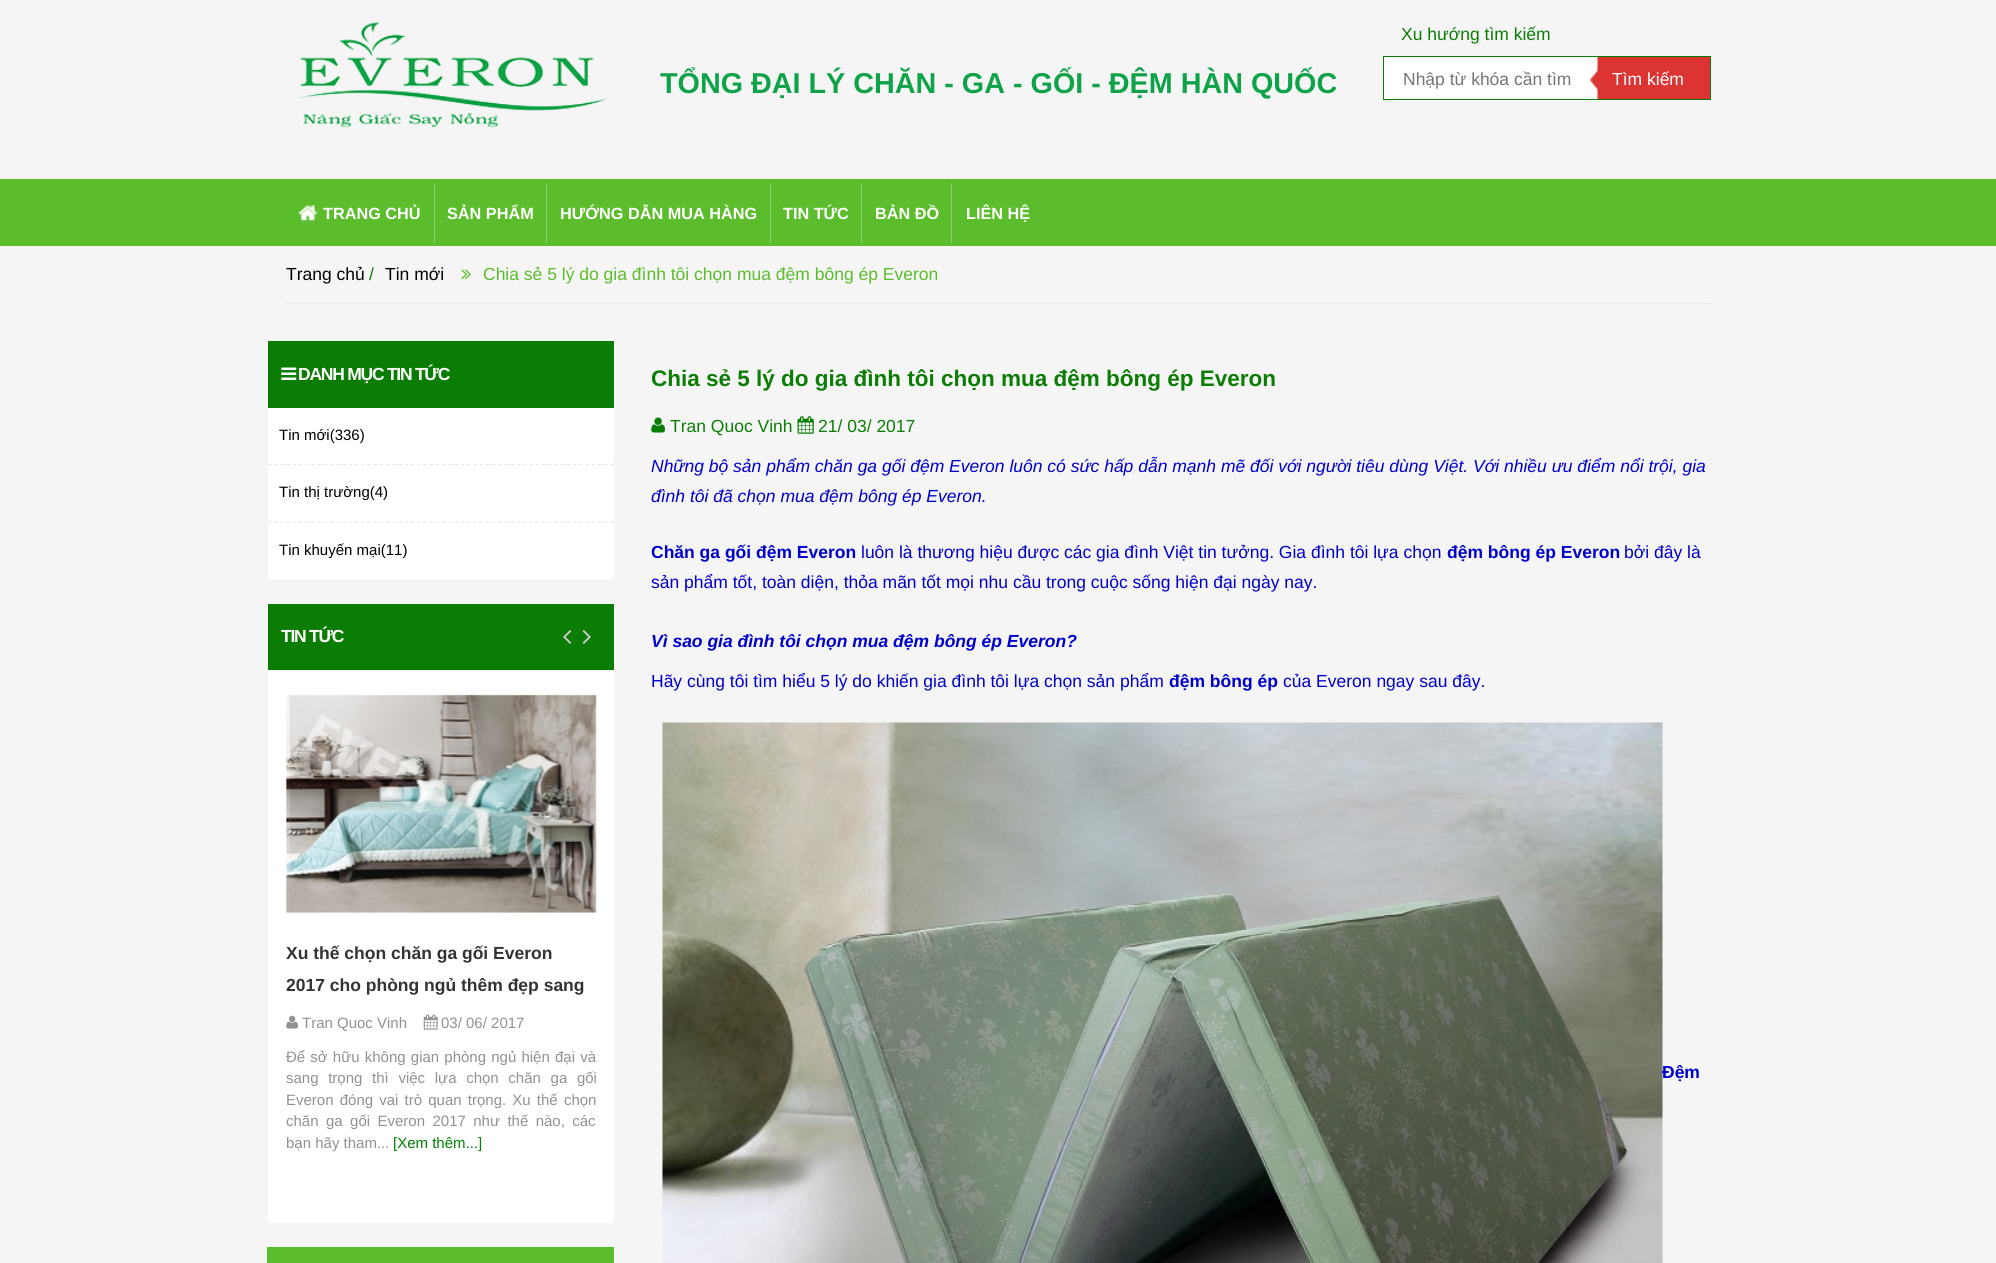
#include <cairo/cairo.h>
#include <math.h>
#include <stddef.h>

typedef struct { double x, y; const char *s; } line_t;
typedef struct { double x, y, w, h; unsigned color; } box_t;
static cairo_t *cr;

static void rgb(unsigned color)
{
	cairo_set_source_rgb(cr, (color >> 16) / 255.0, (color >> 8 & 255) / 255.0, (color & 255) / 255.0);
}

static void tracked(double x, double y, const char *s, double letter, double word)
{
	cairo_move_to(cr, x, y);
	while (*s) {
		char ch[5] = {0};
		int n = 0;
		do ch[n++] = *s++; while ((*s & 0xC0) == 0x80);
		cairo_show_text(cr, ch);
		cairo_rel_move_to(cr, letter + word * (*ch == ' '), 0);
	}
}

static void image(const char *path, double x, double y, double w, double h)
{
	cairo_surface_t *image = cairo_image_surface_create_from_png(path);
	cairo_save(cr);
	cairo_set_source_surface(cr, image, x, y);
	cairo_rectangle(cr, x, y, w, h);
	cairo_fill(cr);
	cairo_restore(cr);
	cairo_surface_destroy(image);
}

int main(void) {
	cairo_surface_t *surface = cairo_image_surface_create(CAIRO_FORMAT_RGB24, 1996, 1263);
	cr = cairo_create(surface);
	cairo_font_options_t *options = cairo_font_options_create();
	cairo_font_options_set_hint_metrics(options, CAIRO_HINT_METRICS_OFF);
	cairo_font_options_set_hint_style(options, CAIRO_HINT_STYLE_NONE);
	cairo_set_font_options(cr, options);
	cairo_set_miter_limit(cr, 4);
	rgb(0xf5f5f5);
	cairo_paint(cr);
	image("img/1.png", 297, 22, 313, 106);
	rgb(0xffffff);
	cairo_rectangle(cr, 1384, 57, 214, 42);
	cairo_fill(cr);
	cairo_rectangle(cr, 1383.5, 56.5, 327, 43);
	rgb(0x0b7d04);
	cairo_set_line_width(cr, 1);
	cairo_stroke(cr);
	image("img/2.png", 1590, 57, 120, 42);
	rgb(0x5bbd2b);
	cairo_rectangle(cr, 0, 179, 1996, 67);
	cairo_fill(cr);
	rgb(0x90cc74);
	cairo_rectangle(cr, 434, 183, 1, 60);
	cairo_fill(cr);
	image("img/3.png", 298, 205, 20, 17);
	{
		static const box_t items[] = {
			{546, 183, 1, 60, 0x90cc74},
			{770, 183, 1, 60, 0x90cc74},
			{861, 183, 1, 60, 0x90cc74},
			{951, 183, 1, 60, 0x90cc74},
			{286, 303, 1425, 1, 0xe9e9e9},
		};
		for (size_t i = 0; i < sizeof items / sizeof *items; i++) {
			rgb(items[i].color);
			cairo_rectangle(cr, items[i].x, items[i].y, items[i].w, items[i].h);
			cairo_fill(cr);
		}
	}
	image("img/4.png", 461, 269, 10, 11);
	rgb(0xffffff);
	cairo_rectangle(cr, 268, 408, 346, 171);
	cairo_fill(cr);
	rgb(0x0b7d04);
	cairo_rectangle(cr, 268, 341, 346, 67);
	cairo_fill(cr);
	image("img/5.png", 281, 367, 16, 13);
	cairo_new_path(cr);
	cairo_move_to(cr, 267.5, 464.5);
	cairo_line_to(cr, 614, 464.5);
	cairo_set_source_rgba(cr, 0.8, 0.8, 0.8, 0.48);
	cairo_set_line_width(cr, 1.2);
	cairo_set_dash(cr, (double[]){3.75, 2.48}, 2, 0);
	cairo_stroke(cr);
	cairo_new_path(cr);
	cairo_move_to(cr, 267.5, 522);
	cairo_line_to(cr, 614, 522);
	rgb(0xe7e7e7);
	cairo_stroke(cr);
	rgb(0xffffff);
	cairo_rectangle(cr, 268, 670, 346, 553);
	cairo_fill(cr);
	rgb(0x0b7d04);
	cairo_rectangle(cr, 268, 604, 346, 66);
	cairo_fill(cr);
	image("img/6.png", 563, 630, 9, 14);
	image("img/7.png", 582, 630, 9, 14);
	image("img/8.png", 285, 694, 312, 219);
	image("img/9.png", 286, 1015, 12, 14);
	image("img/10.png", 423, 1014, 15, 16);
	rgb(0x5bbd2b);
	cairo_rectangle(cr, 267, 1247, 347, 16);
	cairo_fill(cr);
	image("img/11.png", 651, 417, 14, 16);
	image("img/12.png", 797, 416, 17, 18);
	image("img/13.png", 662, 722, 1001, 541);
	cairo_select_font_face(cr, "Liberation Sans", CAIRO_FONT_SLANT_NORMAL, CAIRO_FONT_WEIGHT_BOLD);
	cairo_set_font_size(cr, 28.75);
	rgb(0x0fa349);
	cairo_move_to(cr, 660, 93);
	cairo_show_text(cr, "TỔNG ĐẠI LÝ CHĂN - GA - GỐI - ĐỆM HÀN QUỐC");
	cairo_select_font_face(cr, "Liberation Sans", CAIRO_FONT_SLANT_NORMAL, CAIRO_FONT_WEIGHT_NORMAL);
	cairo_set_font_size(cr, 17.5);
	rgb(0x0b7d04);
	cairo_move_to(cr, 1401, 40);
	cairo_show_text(cr, "Xu hướng tìm kiếm");
	rgb(0x757575);
	cairo_move_to(cr, 1403, 85);
	cairo_show_text(cr, "Nhập từ khóa cần tìm");
	rgb(0xffffff);
	cairo_move_to(cr, 1612, 85);
	cairo_show_text(cr, "Tìm kiếm");
	cairo_select_font_face(cr, "Liberation Sans", CAIRO_FONT_SLANT_NORMAL, CAIRO_FONT_WEIGHT_BOLD);
	cairo_set_font_size(cr, 16.25);
	{
		static const line_t items[] = {
			{323, 219, "TRANG CHỦ"},
			{447, 219, "SẢN PHẨM"},
			{560, 219, "HƯỚNG DẪN MUA HÀNG"},
			{783, 219, "TIN TỨC"},
			{875, 219, "BẢN ĐỒ"},
			{966, 219, "LIÊN HỆ"},
		};
		for (size_t i = 0; i < sizeof items / sizeof *items; i++) {
			cairo_move_to(cr, items[i].x, items[i].y);
			cairo_show_text(cr, items[i].s);
		}
	}
	cairo_select_font_face(cr, "Liberation Sans", CAIRO_FONT_SLANT_NORMAL, CAIRO_FONT_WEIGHT_NORMAL);
	cairo_set_font_size(cr, 17.5);
	rgb(0x000000);
	cairo_move_to(cr, 286, 280);
	cairo_show_text(cr, "Trang chủ");
	rgb(0x0b7d04);
	cairo_move_to(cr, 369, 280);
	cairo_show_text(cr, "/");
	rgb(0x000000);
	cairo_move_to(cr, 385, 280);
	cairo_show_text(cr, "Tin mới");
	rgb(0x5bbd2b);
	cairo_move_to(cr, 483, 280);
	cairo_show_text(cr, "Chia sẻ 5 lý do gia đình tôi chọn mua đệm bông ép Everon");
	cairo_select_font_face(cr, "Liberation Sans", CAIRO_FONT_SLANT_NORMAL, CAIRO_FONT_WEIGHT_BOLD);
	rgb(0xffffff);
	tracked(298, 380, "DANH MỤC TIN TỨC", -1.25, 0);
	cairo_select_font_face(cr, "Liberation Sans", CAIRO_FONT_SLANT_NORMAL, CAIRO_FONT_WEIGHT_NORMAL);
	cairo_set_font_size(cr, 15);
	rgb(0x000000);
	{
		static const line_t items[] = {
			{279, 440, "Tin mới(336)"},
			{279, 497, "Tin thị trường(4)"},
			{279, 555, "Tin khuyến mại(11)"},
		};
		for (size_t i = 0; i < sizeof items / sizeof *items; i++) {
			cairo_move_to(cr, items[i].x, items[i].y);
			cairo_show_text(cr, items[i].s);
		}
	}
	cairo_select_font_face(cr, "Liberation Sans", CAIRO_FONT_SLANT_NORMAL, CAIRO_FONT_WEIGHT_BOLD);
	cairo_set_font_size(cr, 17.5);
	rgb(0xffffff);
	tracked(281, 642, "TIN TỨC", -1.25, 0);
	rgb(0x333333);
	cairo_move_to(cr, 286, 959);
	cairo_show_text(cr, "Xu thế chọn chăn ga gối Everon");
	cairo_move_to(cr, 286, 991);
	cairo_show_text(cr, "2017 cho phòng ngủ thêm đẹp sang");
	cairo_select_font_face(cr, "Liberation Sans", CAIRO_FONT_SLANT_NORMAL, CAIRO_FONT_WEIGHT_NORMAL);
	cairo_set_font_size(cr, 15);
	rgb(0x919191);
	cairo_move_to(cr, 302, 1028);
	cairo_show_text(cr, "Tran Quoc Vinh");
	cairo_move_to(cr, 441, 1028);
	cairo_show_text(cr, "03/ 06/ 2017");
	tracked(286, 1062, "Để sở hữu không gian phòng ngủ hiện đại và", 0, 1);
	tracked(286, 1083, "sang trọng thì việc lựa chọn chăn ga gối", 0, 5.5);
	tracked(286, 1105, "Everon đóng vai trò quan trọng. Xu thế chọn", 0, 2);
	tracked(286, 1126, "chăn ga gối Everon 2017 như thế nào, các", 0, 3.25);
	cairo_move_to(cr, 286, 1148);
	cairo_show_text(cr, "bạn hãy tham...");
	rgb(0x008000);
	cairo_move_to(cr, 393, 1148);
	cairo_show_text(cr, "[Xem thêm...]");
	cairo_select_font_face(cr, "Liberation Sans", CAIRO_FONT_SLANT_NORMAL, CAIRO_FONT_WEIGHT_BOLD);
	cairo_set_font_size(cr, 22.5);
	rgb(0x0b7d04);
	cairo_move_to(cr, 651, 386);
	cairo_show_text(cr, "Chia sẻ 5 lý do gia đình tôi chọn mua đệm bông ép Everon");
	cairo_select_font_face(cr, "Liberation Sans", CAIRO_FONT_SLANT_NORMAL, CAIRO_FONT_WEIGHT_NORMAL);
	cairo_set_font_size(cr, 17.5);
	cairo_move_to(cr, 670, 432);
	cairo_show_text(cr, "Tran Quoc Vinh");
	cairo_move_to(cr, 818, 432);
	cairo_show_text(cr, "21/ 03/ 2017");
	cairo_select_font_face(cr, "Liberation Sans", CAIRO_FONT_SLANT_ITALIC, CAIRO_FONT_WEIGHT_NORMAL);
	rgb(0x0000cd);
	cairo_move_to(cr, 651, 472);
	cairo_show_text(cr, "Những bộ sản phẩm chăn ga gối đệm Everon luôn có sức hấp dẫn mạnh mẽ đối với người tiêu dùng Việt. Với nhiều ưu điểm nổi trội, gia");
	cairo_move_to(cr, 651, 502);
	cairo_show_text(cr, "đình tôi đã chọn mua đệm bông ép Everon.");
	cairo_select_font_face(cr, "Liberation Sans", CAIRO_FONT_SLANT_NORMAL, CAIRO_FONT_WEIGHT_BOLD);
	cairo_move_to(cr, 651, 558);
	cairo_show_text(cr, "Chăn ga gối đệm Everon");
	cairo_select_font_face(cr, "Liberation Sans", CAIRO_FONT_SLANT_NORMAL, CAIRO_FONT_WEIGHT_NORMAL);
	cairo_move_to(cr, 861, 558);
	cairo_show_text(cr, "luôn là thương hiệu được các gia đình Việt tin tưởng. Gia đình tôi lựa chọn");
	cairo_select_font_face(cr, "Liberation Sans", CAIRO_FONT_SLANT_NORMAL, CAIRO_FONT_WEIGHT_BOLD);
	cairo_move_to(cr, 1447, 558);
	cairo_show_text(cr, "đệm bông ép Everon");
	cairo_select_font_face(cr, "Liberation Sans", CAIRO_FONT_SLANT_NORMAL, CAIRO_FONT_WEIGHT_NORMAL);
	cairo_move_to(cr, 1624, 558);
	cairo_show_text(cr, "bởi đây là");
	cairo_move_to(cr, 651, 588);
	cairo_show_text(cr, "sản phẩm tốt, toàn diện, thỏa mãn tốt mọi nhu cầu trong cuộc sống hiện đại ngày nay.");
	cairo_select_font_face(cr, "Liberation Sans", CAIRO_FONT_SLANT_ITALIC, CAIRO_FONT_WEIGHT_BOLD);
	cairo_move_to(cr, 651, 647);
	cairo_show_text(cr, "Vì sao gia đình tôi chọn mua đệm bông ép Everon?");
	cairo_select_font_face(cr, "Liberation Sans", CAIRO_FONT_SLANT_NORMAL, CAIRO_FONT_WEIGHT_NORMAL);
	cairo_move_to(cr, 651, 687);
	cairo_show_text(cr, "Hãy cùng tôi tìm hiểu 5 lý do khiến gia đình tôi lựa chọn sản phẩm");
	cairo_select_font_face(cr, "Liberation Sans", CAIRO_FONT_SLANT_NORMAL, CAIRO_FONT_WEIGHT_BOLD);
	cairo_move_to(cr, 1169, 687);
	cairo_show_text(cr, "đệm bông ép");
	cairo_select_font_face(cr, "Liberation Sans", CAIRO_FONT_SLANT_NORMAL, CAIRO_FONT_WEIGHT_NORMAL);
	cairo_move_to(cr, 1283, 687);
	cairo_show_text(cr, "của Everon ngay sau đây.");
	cairo_select_font_face(cr, "Liberation Sans", CAIRO_FONT_SLANT_NORMAL, CAIRO_FONT_WEIGHT_BOLD);
	cairo_move_to(cr, 1662, 1078);
	cairo_show_text(cr, "Đệm");
	cairo_surface_write_to_png(surface, "page.png");
	cairo_font_options_destroy(options);
	cairo_destroy(cr);
	cairo_surface_destroy(surface);
	return 0;
}
